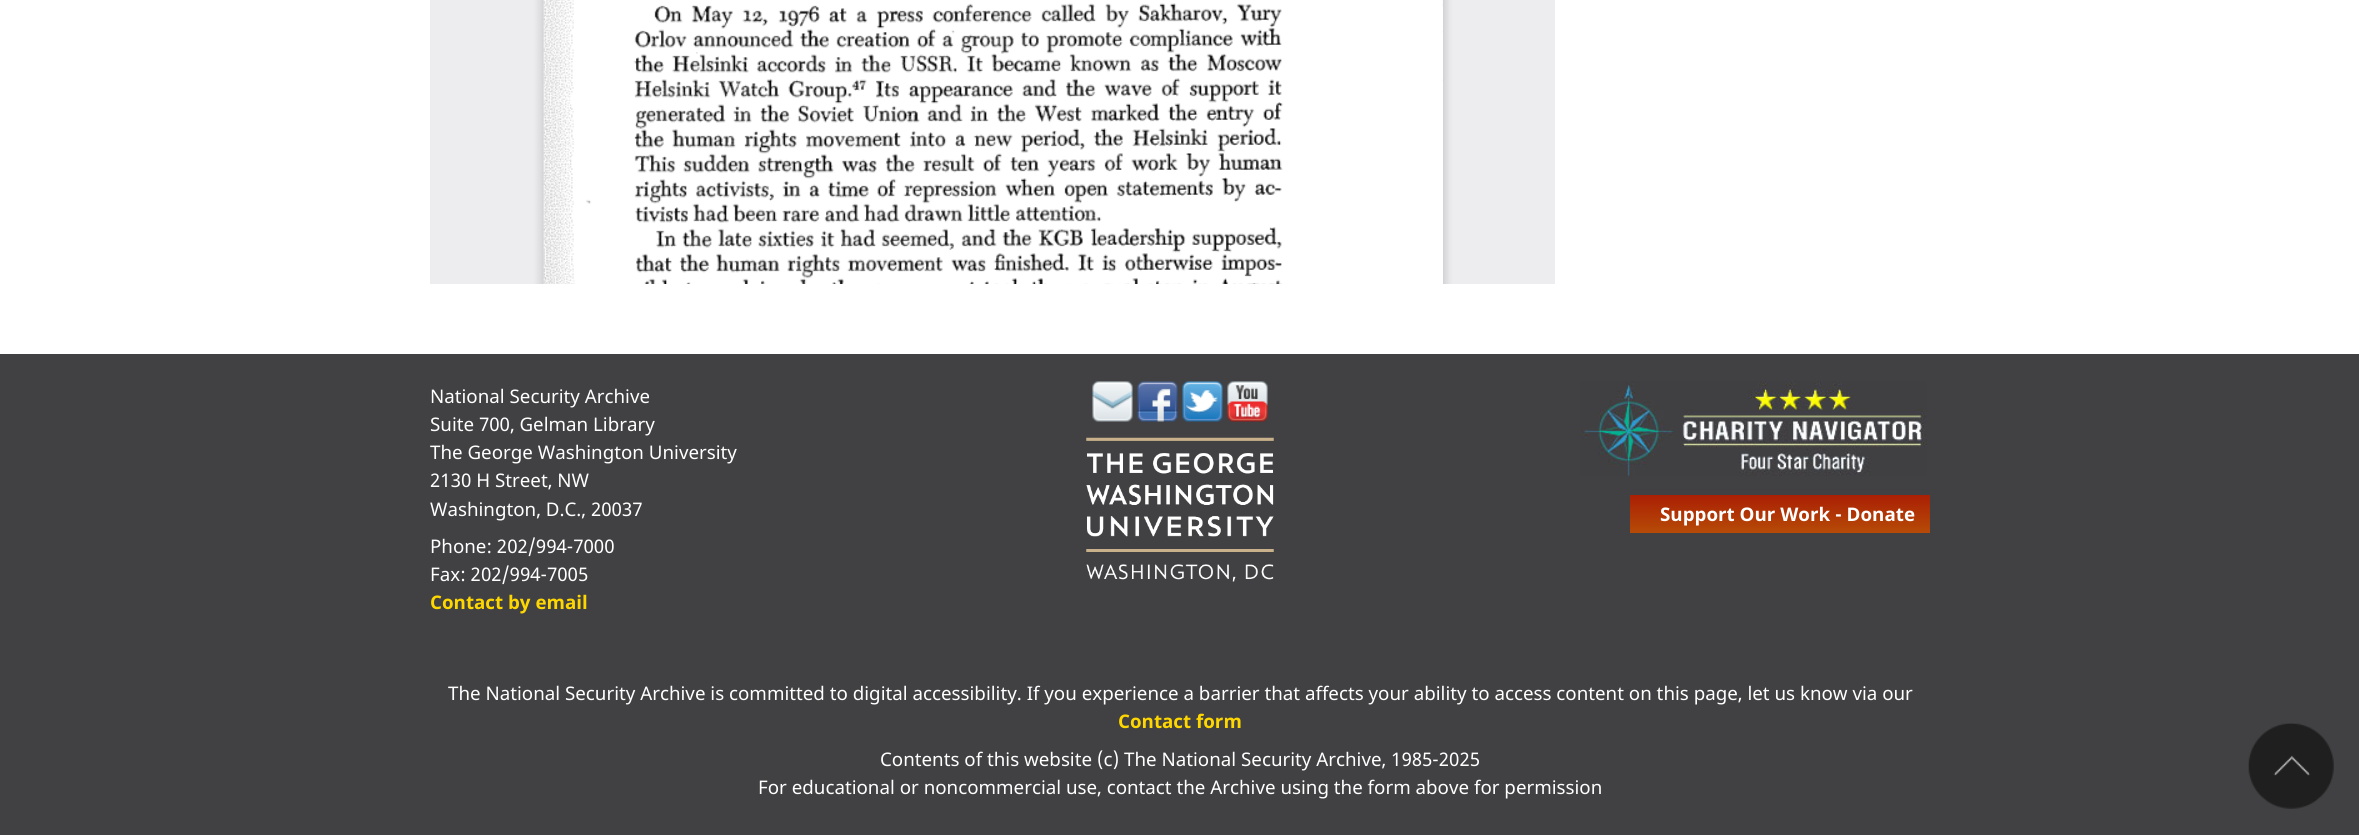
#include <cairo/cairo.h>
#include <math.h>
#include <stddef.h>

typedef struct { double x, y; const char *s; } line_t;
static cairo_t *cr;

static void rgb(unsigned color)
{
	cairo_set_source_rgb(cr, (color >> 16) / 255.0, (color >> 8 & 255) / 255.0, (color & 255) / 255.0);
}

static void image(const char *path, double x, double y, double w, double h)
{
	cairo_surface_t *image = cairo_image_surface_create_from_png(path);
	cairo_save(cr);
	cairo_set_source_surface(cr, image, x, y);
	cairo_rectangle(cr, x, y, w, h);
	cairo_fill(cr);
	cairo_restore(cr);
	cairo_surface_destroy(image);
}

int main(void) {
	cairo_surface_t *surface = cairo_image_surface_create(CAIRO_FORMAT_RGB24, 2359, 835);
	cr = cairo_create(surface);
	cairo_font_options_t *options = cairo_font_options_create();
	cairo_font_options_set_hint_metrics(options, CAIRO_HINT_METRICS_OFF);
	cairo_font_options_set_hint_style(options, CAIRO_HINT_STYLE_NONE);
	cairo_set_font_options(cr, options);
	cairo_set_miter_limit(cr, 4);
	cairo_pattern_t *gradient;
	rgb(0xffffff);
	cairo_paint(cr);
	image("img/1.png", 430, 0, 1125, 284);
	rgb(0x414042);
	cairo_rectangle(cr, 0, 354, 2359, 481);
	cairo_fill(cr);
	image("img/2.png", 1092, 381, 41, 41);
	image("img/3.png", 1137, 381, 41, 41);
	image("img/4.png", 1182, 381, 41, 41);
	image("img/5.png", 1227, 381, 41, 41);
	image("img/6.png", 1086, 437, 188, 145);
	image("img/7.png", 1580, 381, 347, 95);
	gradient = cairo_pattern_create_linear(1780, 495, 1780, 533);
	cairo_pattern_add_color_stop_rgba(gradient, 0, 0.667, 0.122, 0.016, 1);
	cairo_pattern_add_color_stop_rgba(gradient, 1, 0.714, 0.294, 0.027, 1);
	cairo_set_source(cr, gradient);
	cairo_pattern_destroy(gradient);
	cairo_rectangle(cr, 1630, 495, 300, 38);
	cairo_fill(cr);
	image("img/8.png", 2248, 723, 86, 86);
	cairo_select_font_face(cr, "Noto Sans", CAIRO_FONT_SLANT_NORMAL, CAIRO_FONT_WEIGHT_NORMAL);
	cairo_set_font_size(cr, 18.75);
	rgb(0xffffff);
	{
		static const line_t items[] = {
			{430, 403, "National Security Archive"},
			{430, 431, "Suite 700, Gelman Library"},
			{430, 459, "The George Washington University"},
			{430, 487, "2130 H Street, NW"},
			{430, 516, "Washington, D.C., 20037"},
			{430, 553, "Phone: 202/994-7000"},
			{430, 581, "Fax: 202/994-7005"},
		};
		for (size_t i = 0; i < sizeof items / sizeof *items; i++) {
			cairo_move_to(cr, items[i].x, items[i].y);
			cairo_show_text(cr, items[i].s);
		}
	}
	cairo_select_font_face(cr, "Noto Sans", CAIRO_FONT_SLANT_NORMAL, CAIRO_FONT_WEIGHT_BOLD);
	rgb(0xffd700);
	cairo_move_to(cr, 430, 609);
	cairo_show_text(cr, "Contact by email");
	rgb(0xffffff);
	cairo_move_to(cr, 1660, 521);
	cairo_show_text(cr, "Support Our Work - Donate");
	cairo_select_font_face(cr, "Noto Sans", CAIRO_FONT_SLANT_NORMAL, CAIRO_FONT_WEIGHT_NORMAL);
	cairo_move_to(cr, 448, 700);
	cairo_show_text(cr, "The National Security Archive is committed to digital accessibility. If you experience a barrier that affects your ability to access content on this page, let us know via our");
	cairo_select_font_face(cr, "Noto Sans", CAIRO_FONT_SLANT_NORMAL, CAIRO_FONT_WEIGHT_BOLD);
	rgb(0xffd700);
	cairo_move_to(cr, 1118, 728);
	cairo_show_text(cr, "Contact form");
	cairo_select_font_face(cr, "Noto Sans", CAIRO_FONT_SLANT_NORMAL, CAIRO_FONT_WEIGHT_NORMAL);
	rgb(0xffffff);
	cairo_move_to(cr, 880, 766);
	cairo_show_text(cr, "Contents of this website (c) The National Security Archive, 1985-2025");
	cairo_move_to(cr, 758, 794);
	cairo_show_text(cr, "For educational or noncommercial use, contact the Archive using the form above for permission");
	cairo_surface_write_to_png(surface, "page.png");
	cairo_font_options_destroy(options);
	cairo_destroy(cr);
	cairo_surface_destroy(surface);
	return 0;
}
